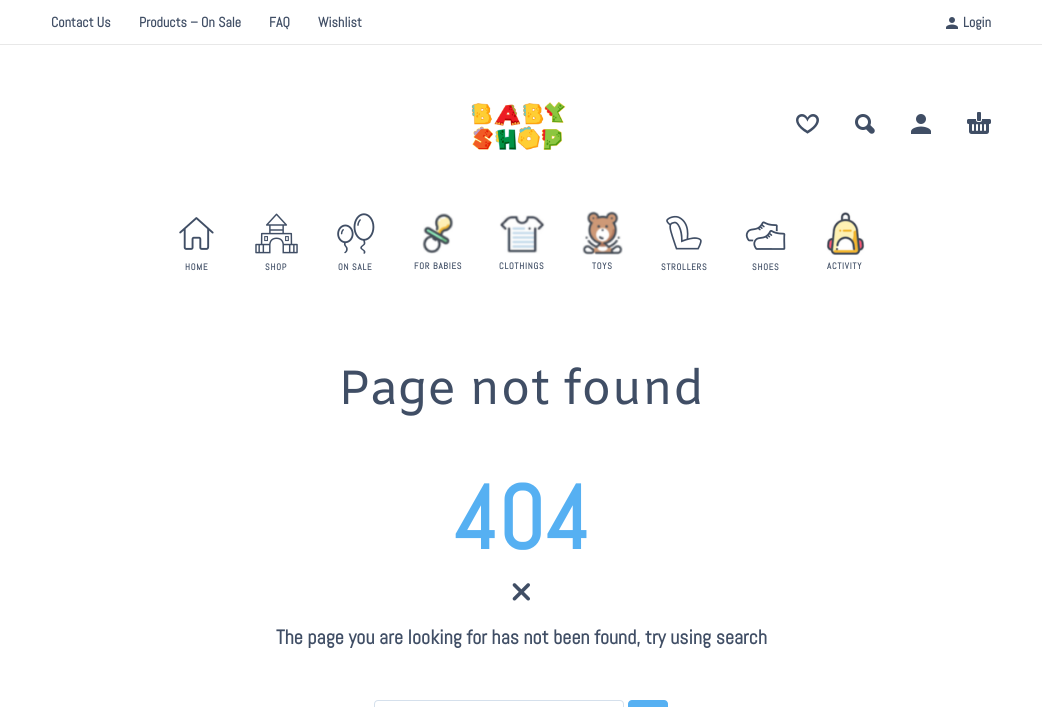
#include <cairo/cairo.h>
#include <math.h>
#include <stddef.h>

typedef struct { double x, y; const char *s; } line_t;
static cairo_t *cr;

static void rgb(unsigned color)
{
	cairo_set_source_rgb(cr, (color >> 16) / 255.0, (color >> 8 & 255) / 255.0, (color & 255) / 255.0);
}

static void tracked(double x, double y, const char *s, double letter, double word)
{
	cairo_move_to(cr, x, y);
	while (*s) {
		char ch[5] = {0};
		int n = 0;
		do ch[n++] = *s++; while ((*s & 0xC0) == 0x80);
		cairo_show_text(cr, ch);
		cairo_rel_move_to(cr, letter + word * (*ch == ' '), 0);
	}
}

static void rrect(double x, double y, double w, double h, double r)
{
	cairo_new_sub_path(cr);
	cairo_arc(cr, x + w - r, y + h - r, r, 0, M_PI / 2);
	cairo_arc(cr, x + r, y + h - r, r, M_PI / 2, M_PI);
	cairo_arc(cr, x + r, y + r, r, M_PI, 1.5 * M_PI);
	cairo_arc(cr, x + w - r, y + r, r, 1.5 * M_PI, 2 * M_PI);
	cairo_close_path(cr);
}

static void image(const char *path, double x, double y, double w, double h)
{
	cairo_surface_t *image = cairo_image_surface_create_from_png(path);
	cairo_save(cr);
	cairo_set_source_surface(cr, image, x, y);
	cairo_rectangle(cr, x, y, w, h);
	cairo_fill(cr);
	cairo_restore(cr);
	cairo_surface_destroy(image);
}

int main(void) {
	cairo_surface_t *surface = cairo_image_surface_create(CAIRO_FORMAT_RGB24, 1042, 707);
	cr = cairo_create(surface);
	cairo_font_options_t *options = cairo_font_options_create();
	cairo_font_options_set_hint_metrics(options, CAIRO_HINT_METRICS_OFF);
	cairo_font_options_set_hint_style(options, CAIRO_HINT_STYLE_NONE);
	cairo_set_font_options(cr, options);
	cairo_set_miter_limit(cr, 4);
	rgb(0xffffff);
	cairo_paint(cr);
	rgb(0xe8e8e8);
	cairo_rectangle(cr, 0, 44, 1042, 1);
	cairo_fill(cr);
	image("img/1.png", 946, 17, 12, 12);
	image("img/2.png", 471, 101, 95, 49);
	image("img/3.png", 796, 114, 23, 20);
	image("img/4.png", 855, 114, 20, 20);
	image("img/5.png", 911, 114, 20, 20);
	image("img/6.png", 967, 112, 24, 22);
	image("img/7.png", 179, 217, 35, 33);
	image("img/8.png", 255, 213, 43, 41);
	image("img/9.png", 337, 213, 38, 41);
	image("img/10.png", 422, 213, 32, 41);
	image("img/11.png", 499, 215, 46, 39);
	image("img/12.png", 582, 211, 41, 44);
	image("img/13.png", 666, 215, 36, 35);
	image("img/14.png", 745, 221, 41, 29);
	image("img/15.png", 826, 211, 39, 45);
	image("img/16.png", 512, 583, 18, 18);
	rrect(374.5, 700.5, 249, 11, 3.5);
	rgb(0xd5e0ec);
	cairo_set_line_width(cr, 1);
	cairo_stroke(cr);
	rgb(0x56b0f2);
	rrect(628, 700, 40, 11, 4);
	cairo_fill(cr);
	cairo_select_font_face(cr, "Abel", CAIRO_FONT_SLANT_NORMAL, CAIRO_FONT_WEIGHT_BOLD);
	cairo_set_font_size(cr, 14);
	rgb(0x404e65);
	{
		static const line_t items[] = {
			{51, 27, "Contact Us"},
			{139, 27, "Products – On Sale"},
			{269, 27, "FAQ"},
			{318, 27, "Wishlist"},
			{963, 27, "Login"},
		};
		for (size_t i = 0; i < sizeof items / sizeof *items; i++) {
			cairo_move_to(cr, items[i].x, items[i].y);
			cairo_show_text(cr, items[i].s);
		}
	}
	cairo_set_font_size(cr, 9);
	{
		static const line_t items[] = {
			{185, 270, "HOME"},
			{265, 270, "SHOP"},
			{338, 270, "ON SALE"},
			{414, 269, "FOR BABIES"},
			{499, 269, "CLOTHINGS"},
			{592, 269, "TOYS"},
			{661, 270, "STROLLERS"},
			{752, 270, "SHOES"},
			{827, 269, "ACTIVITY"},
		};
		for (size_t i = 0; i < sizeof items / sizeof *items; i++) {
			tracked(items[i].x, items[i].y, items[i].s, 0.75, 0);
		}
	}
	cairo_select_font_face(cr, "Amiko", CAIRO_FONT_SLANT_NORMAL, CAIRO_FONT_WEIGHT_NORMAL);
	cairo_set_font_size(cr, 48);
	cairo_move_to(cr, 338, 404);
	cairo_show_text(cr, "Page not found");
	cairo_select_font_face(cr, "Abel", CAIRO_FONT_SLANT_NORMAL, CAIRO_FONT_WEIGHT_BOLD);
	cairo_set_font_size(cr, 90);
	rgb(0x56b0f2);
	cairo_move_to(cr, 453, 549);
	cairo_show_text(cr, "404");
	cairo_set_font_size(cr, 20);
	rgb(0x404e65);
	cairo_move_to(cr, 276, 644);
	cairo_show_text(cr, "The page you are looking for has not been found, try using search");
	cairo_surface_write_to_png(surface, "page.png");
	cairo_font_options_destroy(options);
	cairo_destroy(cr);
	cairo_surface_destroy(surface);
	return 0;
}
